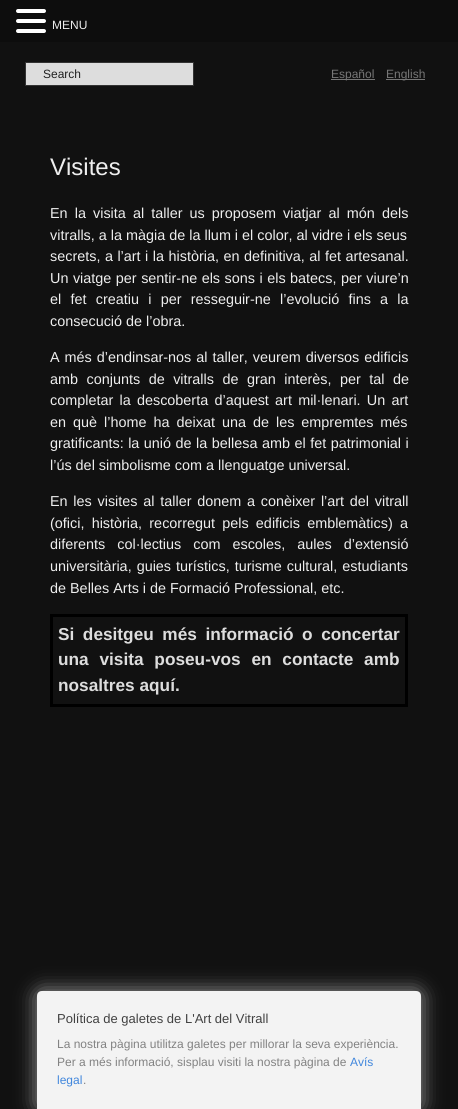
#include <cairo/cairo.h>
#include <math.h>
#include <stddef.h>

static cairo_t *cr;

static void rgb(unsigned color)
{
	cairo_set_source_rgb(cr, (color >> 16) / 255.0, (color >> 8 & 255) / 255.0, (color & 255) / 255.0);
}

static void tracked(double x, double y, const char *s, double letter, double word)
{
	cairo_move_to(cr, x, y);
	while (*s) {
		char ch[5] = {0};
		int n = 0;
		do ch[n++] = *s++; while ((*s & 0xC0) == 0x80);
		cairo_show_text(cr, ch);
		cairo_rel_move_to(cr, letter + word * (*ch == ' '), 0);
	}
}

static void rrect(double x, double y, double w, double h, double r)
{
	cairo_new_sub_path(cr);
	cairo_arc(cr, x + w - r, y + h - r, r, 0, M_PI / 2);
	cairo_arc(cr, x + r, y + h - r, r, M_PI / 2, M_PI);
	cairo_arc(cr, x + r, y + r, r, M_PI, 1.5 * M_PI);
	cairo_arc(cr, x + w - r, y + r, r, 1.5 * M_PI, 2 * M_PI);
	cairo_close_path(cr);
}

static void soft_shadow(double x, double y, double w, double h, double r, double blur, double alpha)
{
	cairo_push_group_with_content(cr, CAIRO_CONTENT_ALPHA);
	cairo_set_operator(cr, CAIRO_OPERATOR_SOURCE);
	for (int i = 15; i >= -15 && fmin(w, h) + blur * i / 3 > 0; i -= 2) {
		double e = blur * i / 6;
		cairo_set_source_rgba(cr, 0, 0, 0, alpha * erfc((i - 1) / 8.5) / 2);
		rrect(x - e, y - e, w + 2 * e, h + 2 * e, fmax(0, fmin(r + e + blur * .6, fmin(w, h) / 2 + e)));
		cairo_fill(cr);
	}
	cairo_pattern_t *soft = cairo_pop_group(cr);
	cairo_mask(cr, soft);
	cairo_pattern_destroy(soft);
}

int main(void) {
	cairo_surface_t *surface = cairo_image_surface_create(CAIRO_FORMAT_RGB24, 458, 1109);
	cr = cairo_create(surface);
	cairo_font_options_t *options = cairo_font_options_create();
	cairo_font_options_set_hint_metrics(options, CAIRO_HINT_METRICS_OFF);
	cairo_font_options_set_hint_style(options, CAIRO_HINT_STYLE_NONE);
	cairo_set_font_options(cr, options);
	cairo_set_miter_limit(cr, 4);
	rgb(0x111111);
	cairo_paint(cr);
	rgb(0x0d0d0d);
	cairo_rectangle(cr, 0, 0, 458, 42);
	cairo_fill(cr);
	rgb(0xffffff);
	rrect(16, 9, 30, 4, 2);
	cairo_fill(cr);
	rrect(16, 19, 30, 4, 2);
	cairo_fill(cr);
	rrect(16, 29, 30, 4, 2);
	cairo_fill(cr);
	rgb(0xdddddd);
	cairo_rectangle(cr, 25.5, 62.5, 168, 23);
	cairo_fill_preserve(cr);
	rgb(0x333333);
	cairo_set_line_width(cr, 1);
	cairo_stroke(cr);
	rgb(0x777777);
	cairo_rectangle(cr, 331, 79, 44, 1);
	cairo_fill(cr);
	cairo_rectangle(cr, 386, 79, 39, 1);
	cairo_fill(cr);
	cairo_rectangle(cr, 51.5, 615.5, 355, 90);
	rgb(0x000000);
	cairo_set_line_width(cr, 3);
	cairo_stroke(cr);
	rgb(0x9a9a9a);
	soft_shadow(37, 991, 384, 118, 5, 10, 1);
	rgb(0xf3f3f3);
	cairo_new_path(cr);
	cairo_move_to(cr, 42, 991);
	cairo_line_to(cr, 416, 991);
	cairo_curve_to(cr, 419, 991, 421, 993, 421, 996);
	cairo_line_to(cr, 421, 1109);
	cairo_line_to(cr, 37, 1109);
	cairo_line_to(cr, 37, 996);
	cairo_curve_to(cr, 37, 993, 39, 991, 42, 991);
	cairo_close_path(cr);
	cairo_fill(cr);
	cairo_select_font_face(cr, "Liberation Sans", CAIRO_FONT_SLANT_NORMAL, CAIRO_FONT_WEIGHT_NORMAL);
	cairo_set_font_size(cr, 12);
	rgb(0xeeeeee);
	cairo_move_to(cr, 52, 29);
	cairo_show_text(cr, "MENU");
	rgb(0x222222);
	cairo_move_to(cr, 43, 78);
	cairo_show_text(cr, "Search");
	rgb(0x777777);
	cairo_move_to(cr, 331, 78);
	cairo_show_text(cr, "Español");
	cairo_move_to(cr, 386, 78);
	cairo_show_text(cr, "English");
	cairo_set_font_size(cr, 24);
	rgb(0xeeeeee);
	cairo_move_to(cr, 50, 175);
	cairo_show_text(cr, "Visites");
	cairo_set_font_size(cr, 14.4);
	tracked(50, 218, "En la visita al taller us proposem viatjar al món dels", 0, 3.1);
	cairo_move_to(cr, 50, 240);
	cairo_show_text(cr, "vitralls, a la màgia de la llum i el color, al vidre i els seus");
	tracked(50, 261, "secrets, a l’art i la història, en definitiva, al fet artesanal.", 0, 0.5);
	tracked(50, 283, "Un viatge per sentir-ne els sons i els batecs, per viure’n", 0, 0.5);
	tracked(50, 304, "el fet creatiu i per resseguir-ne l’evolució fins a la", 0, 5.25);
	cairo_move_to(cr, 50, 326);
	cairo_show_text(cr, "consecució de l’obra.");
	tracked(50, 362, "A més d’endinsar-nos al taller, veurem diversos edificis", 0, 1);
	tracked(50, 384, "amb conjunts de vitralls de gran interès, per tal de", 0, 4.5);
	tracked(50, 405, "completar la descoberta d’aquest art mil·lenari. Un art", 0, 2.25);
	tracked(50, 427, "en què l’home ha deixat una de les empremtes més", 0, 3);
	tracked(50, 448, "gratificants: la unió de la bellesa amb el fet patrimonial i", 0, 0.5);
	cairo_move_to(cr, 50, 470);
	cairo_show_text(cr, "l’ús del simbolisme com a llenguatge universal.");
	tracked(50, 506, "En les visites al taller donem a conèixer l’art del vitrall", 0, 1.75);
	tracked(50, 528, "(ofici, història, recorregut pels edificis emblemàtics) a", 0, 3.25);
	tracked(50, 549, "diferents col·lectius com escoles, aules d’extensió", 0, 8);
	tracked(50, 571, "universitària, guies turístics, turisme cultural, estudiants", 0, 1);
	cairo_move_to(cr, 50, 593);
	cairo_show_text(cr, "de Belles Arts i de Formació Professional, etc.");
	cairo_select_font_face(cr, "Liberation Sans", CAIRO_FONT_SLANT_NORMAL, CAIRO_FONT_WEIGHT_BOLD);
	cairo_set_font_size(cr, 17.25);
	rgb(0xdddddd);
	tracked(58, 640, "Si desitgeu més informació o concertar", 0, 3.75);
	tracked(58, 665, "una visita poseu-vos en contacte amb", 0, 6);
	cairo_move_to(cr, 58, 691);
	cairo_show_text(cr, "nosaltres aquí.");
	cairo_select_font_face(cr, "Liberation Sans", CAIRO_FONT_SLANT_NORMAL, CAIRO_FONT_WEIGHT_NORMAL);
	cairo_set_font_size(cr, 13);
	rgb(0x414141);
	cairo_move_to(cr, 57, 1023);
	cairo_show_text(cr, "Política de galetes de L'Art del Vitrall");
	cairo_set_font_size(cr, 12);
	rgb(0x828282);
	cairo_move_to(cr, 57, 1048);
	cairo_show_text(cr, "La nostra pàgina utilitza galetes per millorar la seva experiència.");
	cairo_move_to(cr, 57, 1066);
	cairo_show_text(cr, "Per a més informació, sisplau visiti la nostra pàgina de");
	rgb(0x4086dc);
	cairo_move_to(cr, 350, 1066);
	cairo_show_text(cr, "Avís");
	cairo_move_to(cr, 57, 1084);
	cairo_show_text(cr, "legal");
	rgb(0x828282);
	cairo_move_to(cr, 83, 1084);
	cairo_show_text(cr, ".");
	cairo_surface_write_to_png(surface, "page.png");
	cairo_font_options_destroy(options);
	cairo_destroy(cr);
	cairo_surface_destroy(surface);
	return 0;
}
